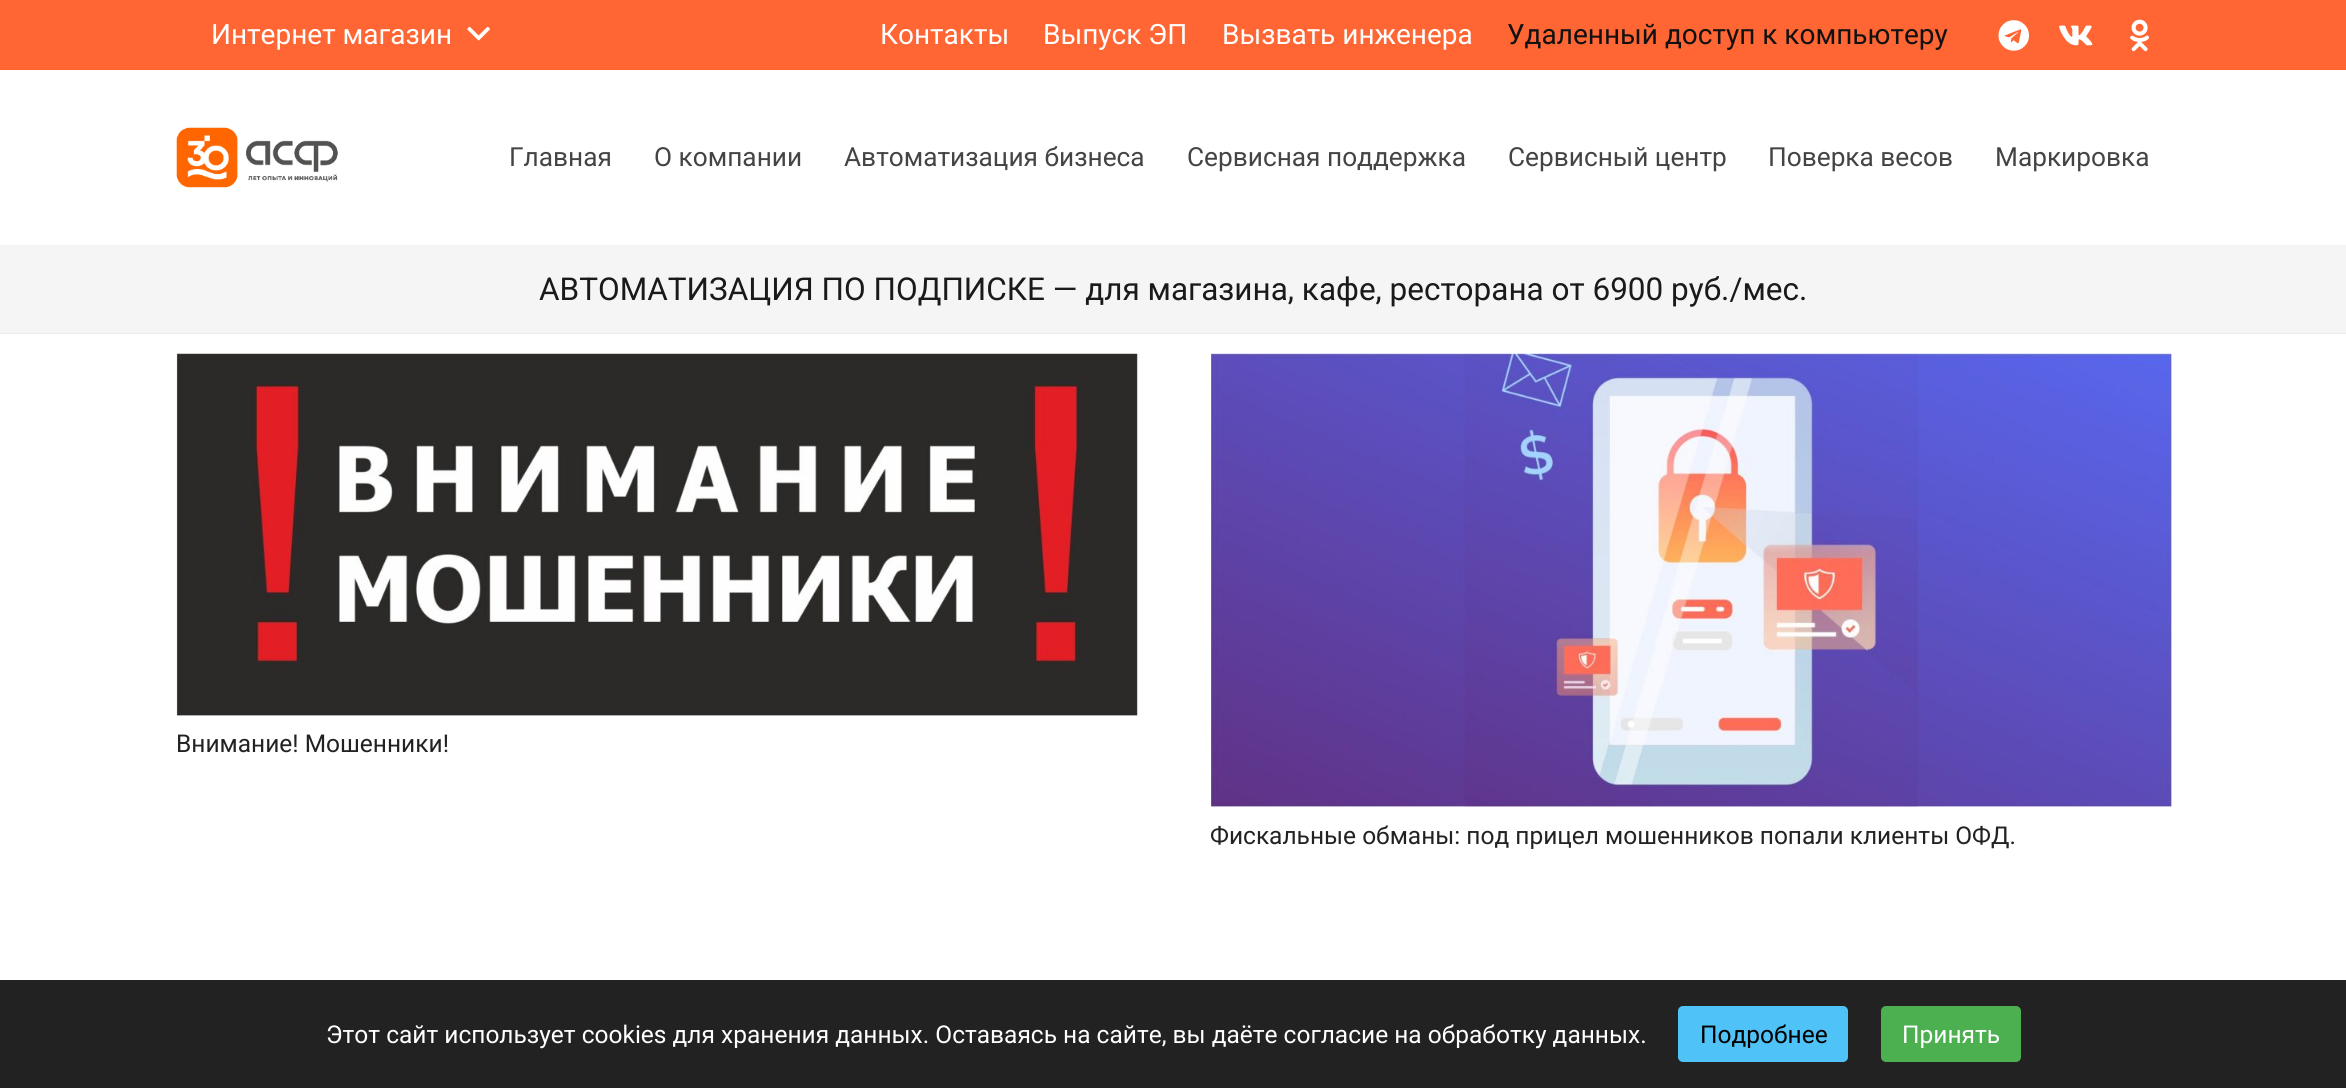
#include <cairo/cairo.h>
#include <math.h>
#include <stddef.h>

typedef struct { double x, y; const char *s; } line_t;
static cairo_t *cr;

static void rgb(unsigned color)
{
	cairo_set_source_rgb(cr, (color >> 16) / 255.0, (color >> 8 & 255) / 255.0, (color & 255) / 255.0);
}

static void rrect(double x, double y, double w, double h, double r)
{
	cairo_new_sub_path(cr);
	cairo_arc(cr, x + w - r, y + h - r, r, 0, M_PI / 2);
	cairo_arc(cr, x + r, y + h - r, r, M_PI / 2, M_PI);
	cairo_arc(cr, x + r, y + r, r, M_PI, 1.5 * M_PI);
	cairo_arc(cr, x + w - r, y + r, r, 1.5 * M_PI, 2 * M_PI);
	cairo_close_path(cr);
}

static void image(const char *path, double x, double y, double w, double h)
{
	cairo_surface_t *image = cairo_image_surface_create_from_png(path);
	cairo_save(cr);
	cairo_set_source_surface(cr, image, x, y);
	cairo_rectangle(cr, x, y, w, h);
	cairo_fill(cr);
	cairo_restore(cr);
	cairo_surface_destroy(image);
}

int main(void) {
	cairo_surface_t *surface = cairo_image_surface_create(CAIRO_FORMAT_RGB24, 2346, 1088);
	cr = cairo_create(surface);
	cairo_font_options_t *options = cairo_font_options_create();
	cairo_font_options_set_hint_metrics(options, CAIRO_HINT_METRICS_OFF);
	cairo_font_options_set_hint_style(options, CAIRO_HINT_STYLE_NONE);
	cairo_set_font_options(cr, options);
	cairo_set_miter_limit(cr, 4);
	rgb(0xffffff);
	cairo_paint(cr);
	rgb(0xff6633);
	cairo_rectangle(cr, 0, 0, 2346, 70);
	cairo_fill(cr);
	image("img/1.png", 467, 26, 23, 15);
	image("img/2.png", 1998, 20, 31, 31);
	image("img/3.png", 2059, 25, 34, 21);
	image("img/4.png", 2130, 19, 19, 33);
	image("img/5.png", 176, 127, 162, 61);
	rgb(0xebebeb);
	cairo_new_path(cr);
	cairo_move_to(cr, 0, 332);
	cairo_line_to(cr, 0, 334);
	cairo_line_to(cr, 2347, 334);
	cairo_line_to(cr, 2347, 247);
	cairo_line_to(cr, 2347, 332);
	cairo_close_path(cr);
	cairo_fill(cr);
	rgb(0xf5f5f5);
	cairo_rectangle(cr, 0, 245, 2346, 88);
	cairo_fill(cr);
	image("img/6.png", 176, 353, 962, 363);
	image("img/7.png", 1211, 353, 961, 454);
	rgb(0x222222);
	cairo_rectangle(cr, 0, 980, 2346, 108);
	cairo_fill(cr);
	rgb(0x4fc3f7);
	rrect(1678, 1006, 170, 56, 5);
	cairo_fill(cr);
	rgb(0x4caf50);
	rrect(1881, 1006, 140, 56, 5);
	cairo_fill(cr);
	cairo_select_font_face(cr, "Roboto", CAIRO_FONT_SLANT_NORMAL, CAIRO_FONT_WEIGHT_NORMAL);
	cairo_set_font_size(cr, 28);
	rgb(0xffffff);
	{
		static const line_t items[] = {
			{211, 44, "Интернет магазин"},
			{880, 44, "Контакты"},
			{1043, 44, "Выпуск ЭП"},
			{1222, 44, "Вызвать инженера"},
		};
		for (size_t i = 0; i < sizeof items / sizeof *items; i++) {
			cairo_move_to(cr, items[i].x, items[i].y);
			cairo_show_text(cr, items[i].s);
		}
	}
	rgb(0x121112);
	cairo_move_to(cr, 1507, 44);
	cairo_show_text(cr, "Удаленный доступ к компьютеру");
	cairo_set_font_size(cr, 26.25);
	rgb(0x444444);
	{
		static const line_t items[] = {
			{509, 166, "Главная"},
			{654, 166, "О компании"},
			{844, 166, "Автоматизация бизнеса"},
			{1187, 166, "Сервисная поддержка"},
			{1508, 166, "Сервисный центр"},
			{1768, 166, "Поверка весов"},
			{1995, 166, "Маркировка"},
		};
		for (size_t i = 0; i < sizeof items / sizeof *items; i++) {
			cairo_move_to(cr, items[i].x, items[i].y);
			cairo_show_text(cr, items[i].s);
		}
	}
	cairo_set_font_size(cr, 31.5);
	rgb(0x1a1a1a);
	cairo_move_to(cr, 539, 300);
	cairo_show_text(cr, "АВТОМАТИЗАЦИЯ ПО ПОДПИСКЕ — для магазина, кафе, ресторана от 6900 руб./мес.");
	cairo_set_font_size(cr, 24.5);
	rgb(0x222222);
	cairo_move_to(cr, 176, 752);
	cairo_show_text(cr, "Внимание! Мошенники!");
	cairo_move_to(cr, 1210, 844);
	cairo_show_text(cr, "Фискальные обманы: под прицел мошенников попали клиенты ОФД.");
	rgb(0xffffff);
	cairo_move_to(cr, 326, 1043);
	cairo_show_text(cr, "Этот сайт использует cookies для хранения данных. Оставаясь на сайте, вы даёте согласие на обработку данных.");
	rgb(0x000000);
	cairo_move_to(cr, 1700, 1043);
	cairo_show_text(cr, "Подробнее");
	rgb(0xffffff);
	cairo_move_to(cr, 1902, 1043);
	cairo_show_text(cr, "Принять");
	cairo_surface_write_to_png(surface, "page.png");
	cairo_font_options_destroy(options);
	cairo_destroy(cr);
	cairo_surface_destroy(surface);
	return 0;
}
